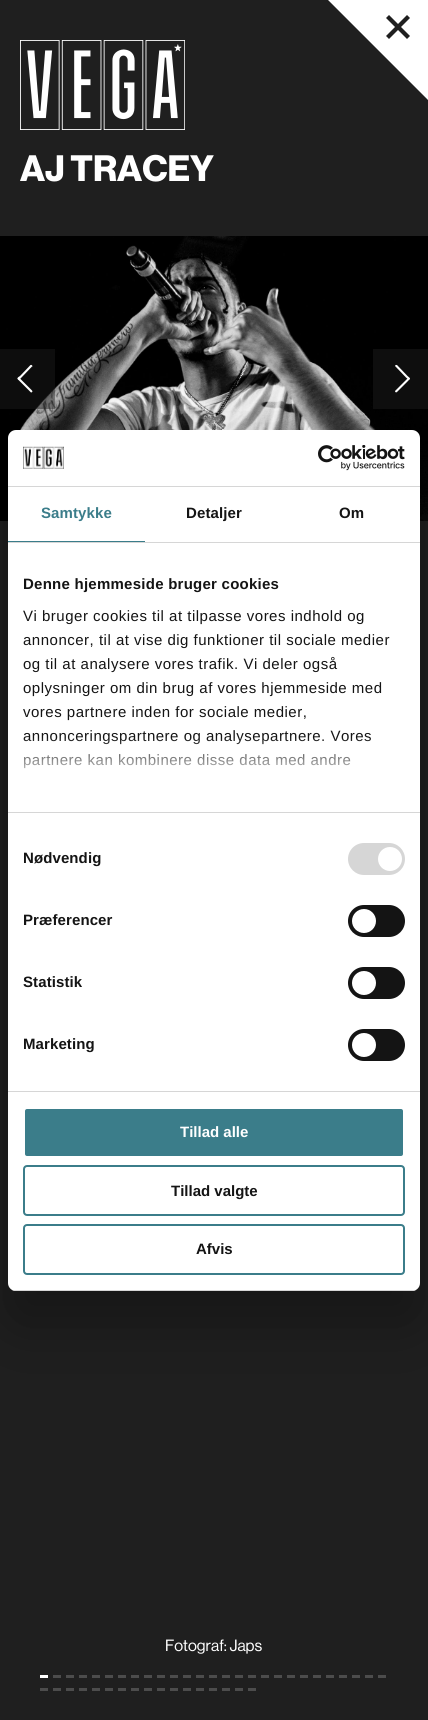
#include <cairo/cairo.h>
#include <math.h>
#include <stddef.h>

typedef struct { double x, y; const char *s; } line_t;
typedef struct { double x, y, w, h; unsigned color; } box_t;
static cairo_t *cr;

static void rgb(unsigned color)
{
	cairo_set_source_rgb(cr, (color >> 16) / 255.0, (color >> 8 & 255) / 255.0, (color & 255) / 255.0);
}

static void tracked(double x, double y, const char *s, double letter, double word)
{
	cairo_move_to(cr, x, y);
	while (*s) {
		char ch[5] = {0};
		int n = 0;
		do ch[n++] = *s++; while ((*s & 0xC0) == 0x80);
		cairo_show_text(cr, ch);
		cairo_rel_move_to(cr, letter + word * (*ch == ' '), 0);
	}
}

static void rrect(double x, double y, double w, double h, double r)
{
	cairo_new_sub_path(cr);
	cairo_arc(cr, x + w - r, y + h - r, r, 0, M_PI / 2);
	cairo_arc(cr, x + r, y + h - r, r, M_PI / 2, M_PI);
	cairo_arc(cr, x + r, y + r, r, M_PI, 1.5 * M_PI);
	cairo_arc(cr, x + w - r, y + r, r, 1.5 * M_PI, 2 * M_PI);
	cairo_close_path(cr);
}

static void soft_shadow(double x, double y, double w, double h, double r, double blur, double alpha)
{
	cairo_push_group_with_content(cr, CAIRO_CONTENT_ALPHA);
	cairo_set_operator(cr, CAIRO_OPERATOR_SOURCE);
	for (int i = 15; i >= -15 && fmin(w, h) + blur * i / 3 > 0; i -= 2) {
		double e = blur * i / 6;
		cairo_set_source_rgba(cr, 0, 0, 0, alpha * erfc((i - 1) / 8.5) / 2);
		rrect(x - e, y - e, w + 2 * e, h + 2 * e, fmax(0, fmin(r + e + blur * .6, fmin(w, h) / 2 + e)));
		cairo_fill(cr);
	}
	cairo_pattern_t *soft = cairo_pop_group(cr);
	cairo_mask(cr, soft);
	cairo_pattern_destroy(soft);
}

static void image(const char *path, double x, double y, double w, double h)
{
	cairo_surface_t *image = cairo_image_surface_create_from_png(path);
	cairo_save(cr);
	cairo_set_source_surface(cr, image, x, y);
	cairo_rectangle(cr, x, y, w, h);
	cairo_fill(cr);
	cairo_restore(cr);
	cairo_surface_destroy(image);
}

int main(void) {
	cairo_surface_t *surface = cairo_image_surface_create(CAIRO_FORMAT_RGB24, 428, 1720);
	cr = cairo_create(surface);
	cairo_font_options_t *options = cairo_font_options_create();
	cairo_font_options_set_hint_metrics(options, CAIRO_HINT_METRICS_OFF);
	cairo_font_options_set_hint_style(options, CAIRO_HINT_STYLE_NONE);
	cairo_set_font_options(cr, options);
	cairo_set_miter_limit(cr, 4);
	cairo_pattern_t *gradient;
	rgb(0x1f1f1f);
	cairo_paint(cr);
	rgb(0xffffff);
	cairo_new_path(cr);
	cairo_move_to(cr, 428, 100);
	cairo_line_to(cr, 428, 0);
	cairo_line_to(cr, 328, 0);
	cairo_close_path(cr);
	cairo_fill(cr);
	rgb(0x1f1f1f);
	cairo_new_path(cr);
	cairo_move_to(cr, 389, 15);
	cairo_line_to(cr, 410, 36);
	cairo_line_to(cr, 407, 39);
	cairo_line_to(cr, 386, 18);
	cairo_close_path(cr);
	cairo_fill(cr);
	cairo_new_path(cr);
	cairo_move_to(cr, 386, 36);
	cairo_line_to(cr, 407, 15);
	cairo_line_to(cr, 410, 18);
	cairo_line_to(cr, 389, 39);
	cairo_close_path(cr);
	cairo_fill(cr);
	image("img/1.png", 20, 40, 165, 90);
	image("img/2.png", 0, 236, 428, 285);
	cairo_set_source_rgba(cr, 0.122, 0.122, 0.122, 0.44);
	cairo_rectangle(cr, 0, 349, 55, 60);
	cairo_fill(cr);
	rgb(0xffffff);
	cairo_new_path(cr);
	cairo_move_to(cr, 32, 366.5);
	cairo_line_to(cr, 21.5, 377.5);
	cairo_curve_to(cr, 20.5, 378.5, 19, 380.5, 18, 379.5);
	cairo_curve_to(cr, 16.5, 378, 18.5, 377, 20, 376);
	cairo_line_to(cr, 30.5, 365);
	cairo_curve_to(cr, 31.5, 364.5, 32.5, 365.5, 32.5, 366.5);
	cairo_close_path(cr);
	cairo_fill(cr);
	cairo_new_path(cr);
	cairo_move_to(cr, 30.5, 392);
	cairo_line_to(cr, 20, 381.5);
	cairo_curve_to(cr, 19, 380.5, 17, 379, 18, 378);
	cairo_curve_to(cr, 19, 376.5, 20, 378.5, 21.5, 380);
	cairo_line_to(cr, 32, 390.5);
	cairo_curve_to(cr, 33, 391.5, 32, 392.5, 31, 392.5);
	cairo_close_path(cr);
	cairo_fill(cr);
	rgb(0x0e0e0e);
	cairo_rectangle(cr, 373, 349, 55, 60);
	cairo_fill(cr);
	rgb(0xffffff);
	cairo_new_path(cr);
	cairo_move_to(cr, 397, 365);
	cairo_line_to(cr, 407.5, 376);
	cairo_curve_to(cr, 408.5, 377, 410.5, 378, 409.5, 379);
	cairo_curve_to(cr, 408.5, 380.5, 407.5, 378.5, 406, 377.5);
	cairo_line_to(cr, 395.5, 366.5);
	cairo_curve_to(cr, 394.5, 366, 395.5, 364.5, 396.5, 365);
	cairo_close_path(cr);
	cairo_fill(cr);
	cairo_new_path(cr);
	cairo_move_to(cr, 395.5, 390.5);
	cairo_line_to(cr, 406, 380);
	cairo_curve_to(cr, 407, 379, 408.5, 377, 409.5, 378);
	cairo_curve_to(cr, 411, 379, 408.5, 380, 407.5, 381.5);
	cairo_line_to(cr, 397, 392);
	cairo_curve_to(cr, 396, 393, 395, 392, 395, 391);
	cairo_close_path(cr);
	cairo_fill(cr);
	{
		static const box_t items[] = {
			{40, 1675, 8, 3, 0xffffff},
			{53, 1675, 8, 3, 0x4c4c4c},
			{66, 1675, 8, 3, 0x4c4c4c},
			{79, 1675, 8, 3, 0x4c4c4c},
			{92, 1675, 8, 3, 0x4c4c4c},
			{105, 1675, 8, 3, 0x4c4c4c},
			{118, 1675, 8, 3, 0x4c4c4c},
			{131, 1675, 8, 3, 0x4c4c4c},
			{144, 1675, 8, 3, 0x4c4c4c},
			{157, 1675, 8, 3, 0x4c4c4c},
			{170, 1675, 8, 3, 0x4c4c4c},
			{183, 1675, 8, 3, 0x4c4c4c},
			{196, 1675, 8, 3, 0x4c4c4c},
			{209, 1675, 8, 3, 0x4c4c4c},
			{222, 1675, 8, 3, 0x4c4c4c},
			{235, 1675, 8, 3, 0x4c4c4c},
			{248, 1675, 8, 3, 0x4c4c4c},
			{261, 1675, 8, 3, 0x4c4c4c},
			{274, 1675, 8, 3, 0x4c4c4c},
			{287, 1675, 8, 3, 0x4c4c4c},
			{300, 1675, 8, 3, 0x4c4c4c},
			{313, 1675, 8, 3, 0x4c4c4c},
			{326, 1675, 8, 3, 0x4c4c4c},
			{339, 1675, 8, 3, 0x4c4c4c},
			{352, 1675, 8, 3, 0x4c4c4c},
			{365, 1675, 8, 3, 0x4c4c4c},
			{378, 1675, 8, 3, 0x4c4c4c},
			{40, 1688, 8, 3, 0x4c4c4c},
			{53, 1688, 8, 3, 0x4c4c4c},
			{66, 1688, 8, 3, 0x4c4c4c},
			{79, 1688, 8, 3, 0x4c4c4c},
			{92, 1688, 8, 3, 0x4c4c4c},
			{105, 1688, 8, 3, 0x4c4c4c},
			{118, 1688, 8, 3, 0x4c4c4c},
			{131, 1688, 8, 3, 0x4c4c4c},
			{144, 1688, 8, 3, 0x4c4c4c},
			{157, 1688, 8, 3, 0x4c4c4c},
			{170, 1688, 8, 3, 0x4c4c4c},
			{183, 1688, 8, 3, 0x4c4c4c},
			{196, 1688, 8, 3, 0x4c4c4c},
			{209, 1688, 8, 3, 0x4c4c4c},
			{222, 1688, 8, 3, 0x4c4c4c},
			{235, 1688, 8, 3, 0x4c4c4c},
			{248, 1688, 8, 3, 0x4c4c4c},
		};
		for (size_t i = 0; i < sizeof items / sizeof *items; i++) {
			rgb(items[i].color);
			cairo_rectangle(cr, items[i].x, items[i].y, items[i].w, items[i].h);
			cairo_fill(cr);
		}
	}
	rgb(0x000000);
	soft_shadow(8, 462, 412, 861, 8, 34, 0.3);
	rgb(0xffffff);
	rrect(8, 430, 412, 861, 8);
	cairo_fill(cr);
	rgb(0xd6d6d6);
	cairo_rectangle(cr, 8, 486, 412, 1);
	cairo_fill(cr);
	image("img/3.png", 23, 446, 41, 23);
	image("img/4.png", 318, 445, 87, 26);
	{
		static const box_t items[] = {
			{8, 542, 412, 1, 0xd6d6d6},
			{8, 541, 137, 1, 0x3b7d8a},
			{8, 812, 412, 1, 0xd6d6d6},
			{8, 1091, 412, 1, 0xd6d6d6},
		};
		for (size_t i = 0; i < sizeof items / sizeof *items; i++) {
			rgb(items[i].color);
			cairo_rectangle(cr, items[i].x, items[i].y, items[i].w, items[i].h);
			cairo_fill(cr);
		}
	}
	rrect(348, 843, 57, 32, 16);
	cairo_fill(cr);
	rgb(0xffffff);
	cairo_arc(cr, 390, 859, 12, 0, 2 * M_PI);
	cairo_fill(cr);
	rgb(0x141414);
	rrect(348, 905, 57, 32, 16);
	cairo_fill(cr);
	rgb(0xffffff);
	cairo_arc(cr, 364, 921, 12, 0, 2 * M_PI);
	cairo_fill(cr);
	rgb(0x141414);
	rrect(348, 967, 57, 32, 16);
	cairo_fill(cr);
	rgb(0xffffff);
	cairo_arc(cr, 364, 983, 12, 0, 2 * M_PI);
	cairo_fill(cr);
	rgb(0x141414);
	rrect(348, 1029, 57, 32, 16);
	cairo_fill(cr);
	rgb(0xffffff);
	cairo_arc(cr, 364, 1045, 12, 0, 2 * M_PI);
	cairo_fill(cr);
	cairo_save(cr);
	rrect(8, 430, 412, 861, 8);
	cairo_clip(cr);
	rgb(0xd6d6d6);
	cairo_rectangle(cr, 8, 1290, 412, 1);
	cairo_fill(cr);
	cairo_restore(cr);
	rgb(0x3b7d8a);
	rrect(24, 1108, 380, 49, 3);
	cairo_fill_preserve(cr);
	rgb(0xffffff);
	cairo_stroke(cr);
	rrect(24, 1166, 380, 49, 3);
	rgb(0x3b7d8a);
	cairo_stroke(cr);
	rrect(24, 1225, 380, 49, 3);
	cairo_stroke(cr);
	cairo_select_font_face(cr, "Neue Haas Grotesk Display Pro", CAIRO_FONT_SLANT_NORMAL, CAIRO_FONT_WEIGHT_BOLD);
	cairo_set_font_size(cr, 36);
	rgb(0xffffff);
	cairo_move_to(cr, 20, 181);
	cairo_show_text(cr, "AJ TRACEY");
	cairo_select_font_face(cr, "Neue Haas Grotesk Display Pro Medium", CAIRO_FONT_SLANT_NORMAL, CAIRO_FONT_WEIGHT_NORMAL);
	cairo_set_font_size(cr, 16);
	cairo_move_to(cr, 165, 1651);
	cairo_show_text(cr, "Fotograf: Japs");
	cairo_select_font_face(cr, "Liberation Sans", CAIRO_FONT_SLANT_NORMAL, CAIRO_FONT_WEIGHT_BOLD);
	cairo_set_font_size(cr, 15);
	rgb(0x3b7d8a);
	tracked(41, 518, "Samtykke", 0.1, 0);
	rgb(0x141414);
	tracked(186, 518, "Detaljer", 0.1, 0);
	tracked(339, 518, "Om", 0.1, 0);
	tracked(23, 589, "Denne hjemmeside bruger cookies", 0.25, 0);
	cairo_select_font_face(cr, "Liberation Sans", CAIRO_FONT_SLANT_NORMAL, CAIRO_FONT_WEIGHT_NORMAL);
	{
		static const line_t items[] = {
			{23, 621, "Vi bruger cookies til at tilpasse vores indhold og"},
			{23, 645, "annoncer, til at vise dig funktioner til sociale medier"},
			{23, 669, "og til at analysere vores trafik. Vi deler også"},
			{23, 693, "oplysninger om din brug af vores hjemmeside med"},
			{23, 717, "vores partnere inden for sociale medier,"},
			{23, 741, "annonceringspartnere og analysepartnere. Vores"},
			{23, 765, "partnere kan kombinere disse data med andre"},
		};
		for (size_t i = 0; i < sizeof items / sizeof *items; i++) {
			tracked(items[i].x, items[i].y, items[i].s, 0.5, 0);
		}
	}
	gradient = cairo_pattern_create_linear(208, 812, 208, 737);
	cairo_pattern_add_color_stop_rgba(gradient, 0, 1, 1, 1, 1);
	cairo_pattern_add_color_stop_rgba(gradient, 0.5, 1, 1, 1, 0.8);
	cairo_pattern_add_color_stop_rgba(gradient, 1, 1, 1, 1, 0);
	cairo_set_source(cr, gradient);
	cairo_pattern_destroy(gradient);
	cairo_rectangle(cr, 23, 738, 348, 31);
	cairo_fill(cr);
	cairo_select_font_face(cr, "Liberation Sans", CAIRO_FONT_SLANT_NORMAL, CAIRO_FONT_WEIGHT_BOLD);
	rgb(0x141414);
	{
		static const line_t items[] = {
			{23, 863, "Nødvendig"},
			{23, 925, "Præferencer"},
			{23, 987, "Statistik"},
			{23, 1049, "Marketing"},
		};
		for (size_t i = 0; i < sizeof items / sizeof *items; i++) {
			tracked(items[i].x, items[i].y, items[i].s, 0.1, 0);
		}
	}
	rgb(0xffffff);
	cairo_move_to(cr, 180, 1137);
	cairo_show_text(cr, "Tillad alle");
	rgb(0x141414);
	cairo_move_to(cr, 171, 1196);
	cairo_show_text(cr, "Tillad valgte");
	cairo_move_to(cr, 196, 1254);
	cairo_show_text(cr, "Afvis");
	cairo_surface_write_to_png(surface, "page.png");
	cairo_font_options_destroy(options);
	cairo_destroy(cr);
	cairo_surface_destroy(surface);
	return 0;
}
